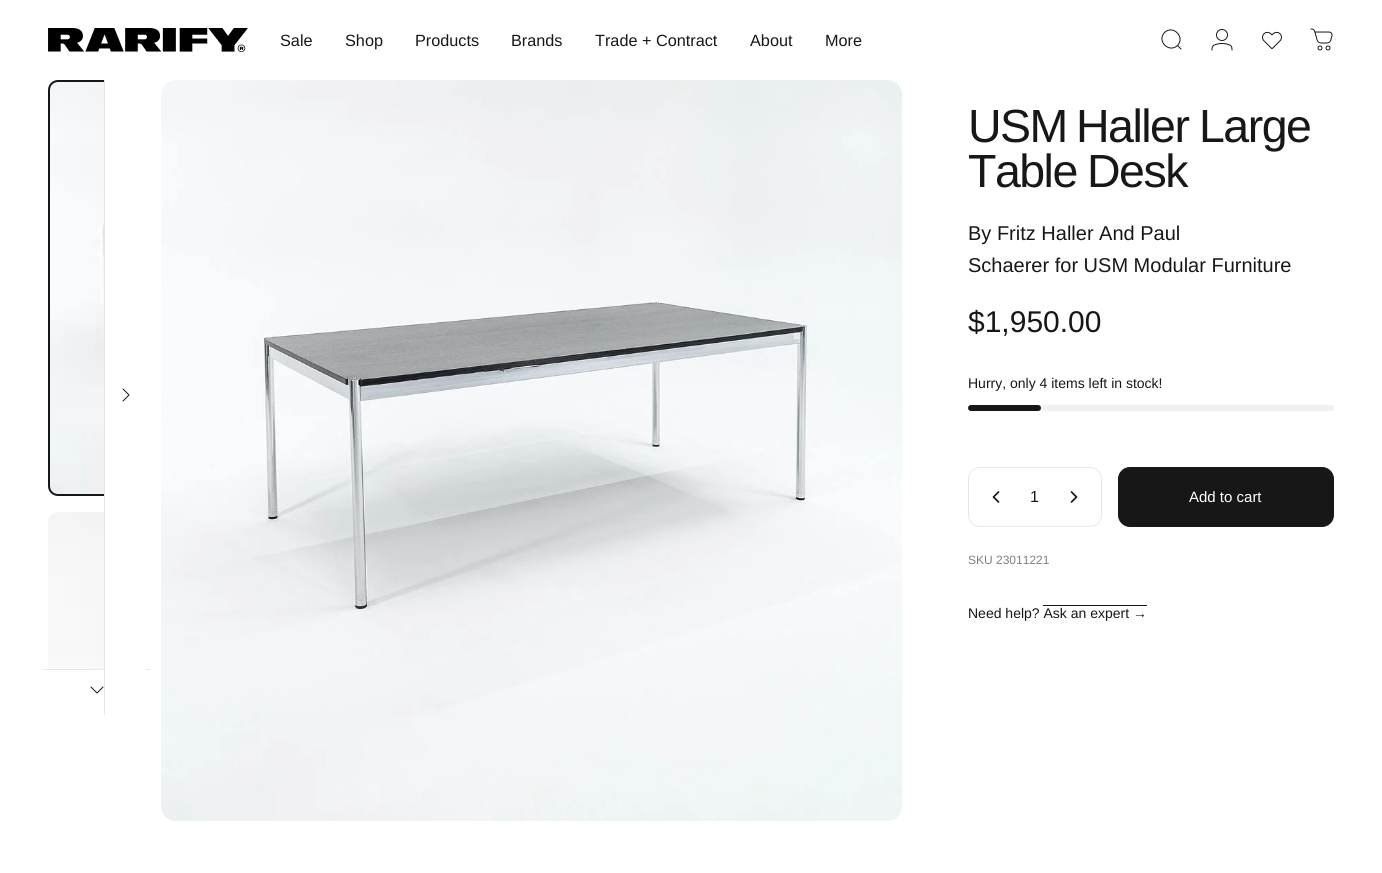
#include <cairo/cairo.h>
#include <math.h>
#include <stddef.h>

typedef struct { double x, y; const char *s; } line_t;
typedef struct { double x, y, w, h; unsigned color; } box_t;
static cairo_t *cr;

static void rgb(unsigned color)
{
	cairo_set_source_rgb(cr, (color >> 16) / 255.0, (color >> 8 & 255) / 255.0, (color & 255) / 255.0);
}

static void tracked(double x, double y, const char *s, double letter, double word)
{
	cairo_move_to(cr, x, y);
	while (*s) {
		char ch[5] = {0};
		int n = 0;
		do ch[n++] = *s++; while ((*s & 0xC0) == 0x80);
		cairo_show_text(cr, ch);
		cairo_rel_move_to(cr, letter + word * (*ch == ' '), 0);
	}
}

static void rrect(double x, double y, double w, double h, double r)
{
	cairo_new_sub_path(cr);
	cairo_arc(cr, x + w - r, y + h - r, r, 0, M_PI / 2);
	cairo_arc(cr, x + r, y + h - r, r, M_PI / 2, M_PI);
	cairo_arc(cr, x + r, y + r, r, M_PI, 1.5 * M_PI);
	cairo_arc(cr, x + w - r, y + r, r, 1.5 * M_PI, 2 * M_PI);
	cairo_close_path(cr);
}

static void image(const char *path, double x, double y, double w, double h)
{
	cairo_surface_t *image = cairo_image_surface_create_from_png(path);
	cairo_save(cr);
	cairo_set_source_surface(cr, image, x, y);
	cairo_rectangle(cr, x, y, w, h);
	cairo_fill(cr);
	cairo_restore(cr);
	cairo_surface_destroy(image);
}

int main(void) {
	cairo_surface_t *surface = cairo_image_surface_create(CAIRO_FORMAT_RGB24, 1382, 873);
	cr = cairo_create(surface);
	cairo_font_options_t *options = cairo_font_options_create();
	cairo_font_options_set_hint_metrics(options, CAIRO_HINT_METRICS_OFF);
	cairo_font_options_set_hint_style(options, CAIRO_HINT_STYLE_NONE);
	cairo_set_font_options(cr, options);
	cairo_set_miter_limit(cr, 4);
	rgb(0xffffff);
	cairo_paint(cr);
	image("img/1.png", 48, 28, 200, 24);
	cairo_new_path(cr);
	cairo_move_to(cr, 1181, 49);
	cairo_line_to(cr, 1177.5, 45.5);
	cairo_move_to(cr, 1177.5, 45.5);
	cairo_curve_to(cr, 1185.5, 37, 1173, 24.5, 1164.5, 32.5);
	cairo_curve_to(cr, 1156.5, 41, 1169, 53.5, 1177.5, 45.5);
	cairo_close_path(cr);
	rgb(0x171717);
	cairo_set_line_width(cr, 1);
	cairo_set_line_cap(cr, CAIRO_LINE_CAP_ROUND);
	cairo_stroke(cr);
	image("img/2.png", 1211, 29, 22, 22);
	image("img/3.png", 1262, 31, 20, 18);
	image("img/4.png", 1310, 28, 23, 23);
	rgb(0xfafafa);
	cairo_new_path(cr);
	cairo_move_to(cr, 58, 512);
	cairo_line_to(cr, 145, 512);
	cairo_line_to(cr, 145, 710);
	cairo_line_to(cr, 48, 710);
	cairo_line_to(cr, 48, 522);
	cairo_curve_to(cr, 48, 516.5, 52.5, 512, 58, 512);
	cairo_close_path(cr);
	cairo_fill(cr);
	rgb(0xffffff);
	cairo_rectangle(cr, 48, 670, 97, 40);
	cairo_fill(cr);
	rgb(0xe8e8e8);
	cairo_rectangle(cr, 43, 669, 107, 1);
	cairo_fill(cr);
	image("img/5.png", 48, 80, 56, 416);
	cairo_save(cr);
	cairo_rectangle(cr, 48, 80, 97, 630);
	cairo_clip(cr);
	rrect(49, 81, 414, 414, 9);
	rgb(0x171717);
	cairo_set_line_width(cr, 2);
	cairo_set_line_cap(cr, CAIRO_LINE_CAP_BUTT);
	cairo_stroke(cr);
	cairo_restore(cr);
	{
		static const box_t items[] = {
			{104, 75, 1, 640, 0xe8e8e8},
			{104, 75, 1, 5, 0xffffff},
			{105, 80, 40, 590, 0xffffff},
		};
		for (size_t i = 0; i < sizeof items / sizeof *items; i++) {
			rgb(items[i].color);
			cairo_rectangle(cr, items[i].x, items[i].y, items[i].w, items[i].h);
			cairo_fill(cr);
		}
	}
	cairo_new_path(cr);
	cairo_move_to(cr, 123, 389);
	cairo_line_to(cr, 129, 395);
	cairo_line_to(cr, 123, 401);
	rgb(0x171717);
	cairo_set_line_join(cr, CAIRO_LINE_JOIN_ROUND);
	cairo_stroke(cr);
	cairo_new_path(cr);
	cairo_move_to(cr, 91, 687);
	cairo_line_to(cr, 97, 693);
	cairo_line_to(cr, 103, 687);
	cairo_stroke(cr);
	image("img/6.png", 48, 512, 56, 157);
	image("img/7.png", 161, 80, 741, 741);
	rgb(0xf1f1f1);
	rrect(968, 405, 366, 6, 3);
	cairo_fill(cr);
	rgb(0x171717);
	rrect(968, 405, 73, 6, 3);
	cairo_fill(cr);
	rrect(968.5, 467.5, 133, 59, 11.5);
	rgb(0xe8e8e8);
	cairo_set_line_cap(cr, CAIRO_LINE_CAP_BUTT);
	cairo_set_line_join(cr, CAIRO_LINE_JOIN_MITER);
	cairo_stroke(cr);
	cairo_new_path(cr);
	cairo_move_to(cr, 998.5, 492);
	cairo_line_to(cr, 993.5, 497);
	cairo_line_to(cr, 998.5, 502);
	rgb(0x171717);
	cairo_set_line_width(cr, 1.7);
	cairo_set_line_cap(cr, CAIRO_LINE_CAP_ROUND);
	cairo_set_line_join(cr, CAIRO_LINE_JOIN_ROUND);
	cairo_stroke(cr);
	cairo_new_path(cr);
	cairo_move_to(cr, 1071.5, 492);
	cairo_line_to(cr, 1076.5, 497);
	cairo_line_to(cr, 1071.5, 502);
	cairo_stroke(cr);
	rrect(1118.5, 467.5, 215, 59, 11.5);
	cairo_fill_preserve(cr);
	cairo_set_line_width(cr, 1);
	cairo_set_line_cap(cr, CAIRO_LINE_CAP_BUTT);
	cairo_set_line_join(cr, CAIRO_LINE_JOIN_MITER);
	cairo_stroke(cr);
	cairo_rectangle(cr, 1043, 605, 104, 1);
	cairo_fill(cr);
	cairo_select_font_face(cr, "Liberation Sans", CAIRO_FONT_SLANT_NORMAL, CAIRO_FONT_WEIGHT_NORMAL);
	cairo_set_font_size(cr, 16.25);
	{
		static const line_t items[] = {
			{280, 46, "Sale"},
			{345, 46, "Shop"},
			{415, 46, "Products"},
			{511, 46, "Brands"},
			{595, 46, "Trade + Contract"},
			{750, 46, "About"},
			{825, 46, "More"},
		};
		for (size_t i = 0; i < sizeof items / sizeof *items; i++) {
			cairo_move_to(cr, items[i].x, items[i].y);
			cairo_show_text(cr, items[i].s);
		}
	}
	cairo_set_font_size(cr, 46.5);
	{
		static const line_t items[] = {
			{968, 142, "USM"},
			{1076, 142, "Haller"},
			{1199, 142, "Large"},
			{968, 187, "Table"},
			{1087, 187, "Desk"},
		};
		for (size_t i = 0; i < sizeof items / sizeof *items; i++) {
			tracked(items[i].x, items[i].y, items[i].s, -1.5, 0);
		}
	}
	cairo_set_font_size(cr, 20);
	cairo_move_to(cr, 968, 240);
	cairo_show_text(cr, "By Fritz Haller And Paul");
	cairo_move_to(cr, 968, 272);
	cairo_show_text(cr, "Schaerer for USM Modular Furniture");
	cairo_set_font_size(cr, 30);
	cairo_move_to(cr, 968, 332);
	cairo_show_text(cr, "$1,950.00");
	cairo_set_font_size(cr, 14);
	cairo_move_to(cr, 968, 388);
	cairo_show_text(cr, "Hurry, only 4 items left in stock!");
	cairo_set_font_size(cr, 16);
	cairo_move_to(cr, 1030, 502);
	cairo_show_text(cr, "1");
	cairo_set_font_size(cr, 15);
	rgb(0xffffff);
	cairo_move_to(cr, 1189, 502);
	cairo_show_text(cr, "Add to cart");
	cairo_set_font_size(cr, 12);
	rgb(0x808080);
	cairo_move_to(cr, 968, 564);
	cairo_show_text(cr, "SKU 23011221");
	cairo_set_font_size(cr, 14);
	rgb(0x171717);
	cairo_move_to(cr, 968, 618);
	cairo_show_text(cr, "Need help? Ask an expert →");
	cairo_surface_write_to_png(surface, "page.png");
	cairo_font_options_destroy(options);
	cairo_destroy(cr);
	cairo_surface_destroy(surface);
	return 0;
}
